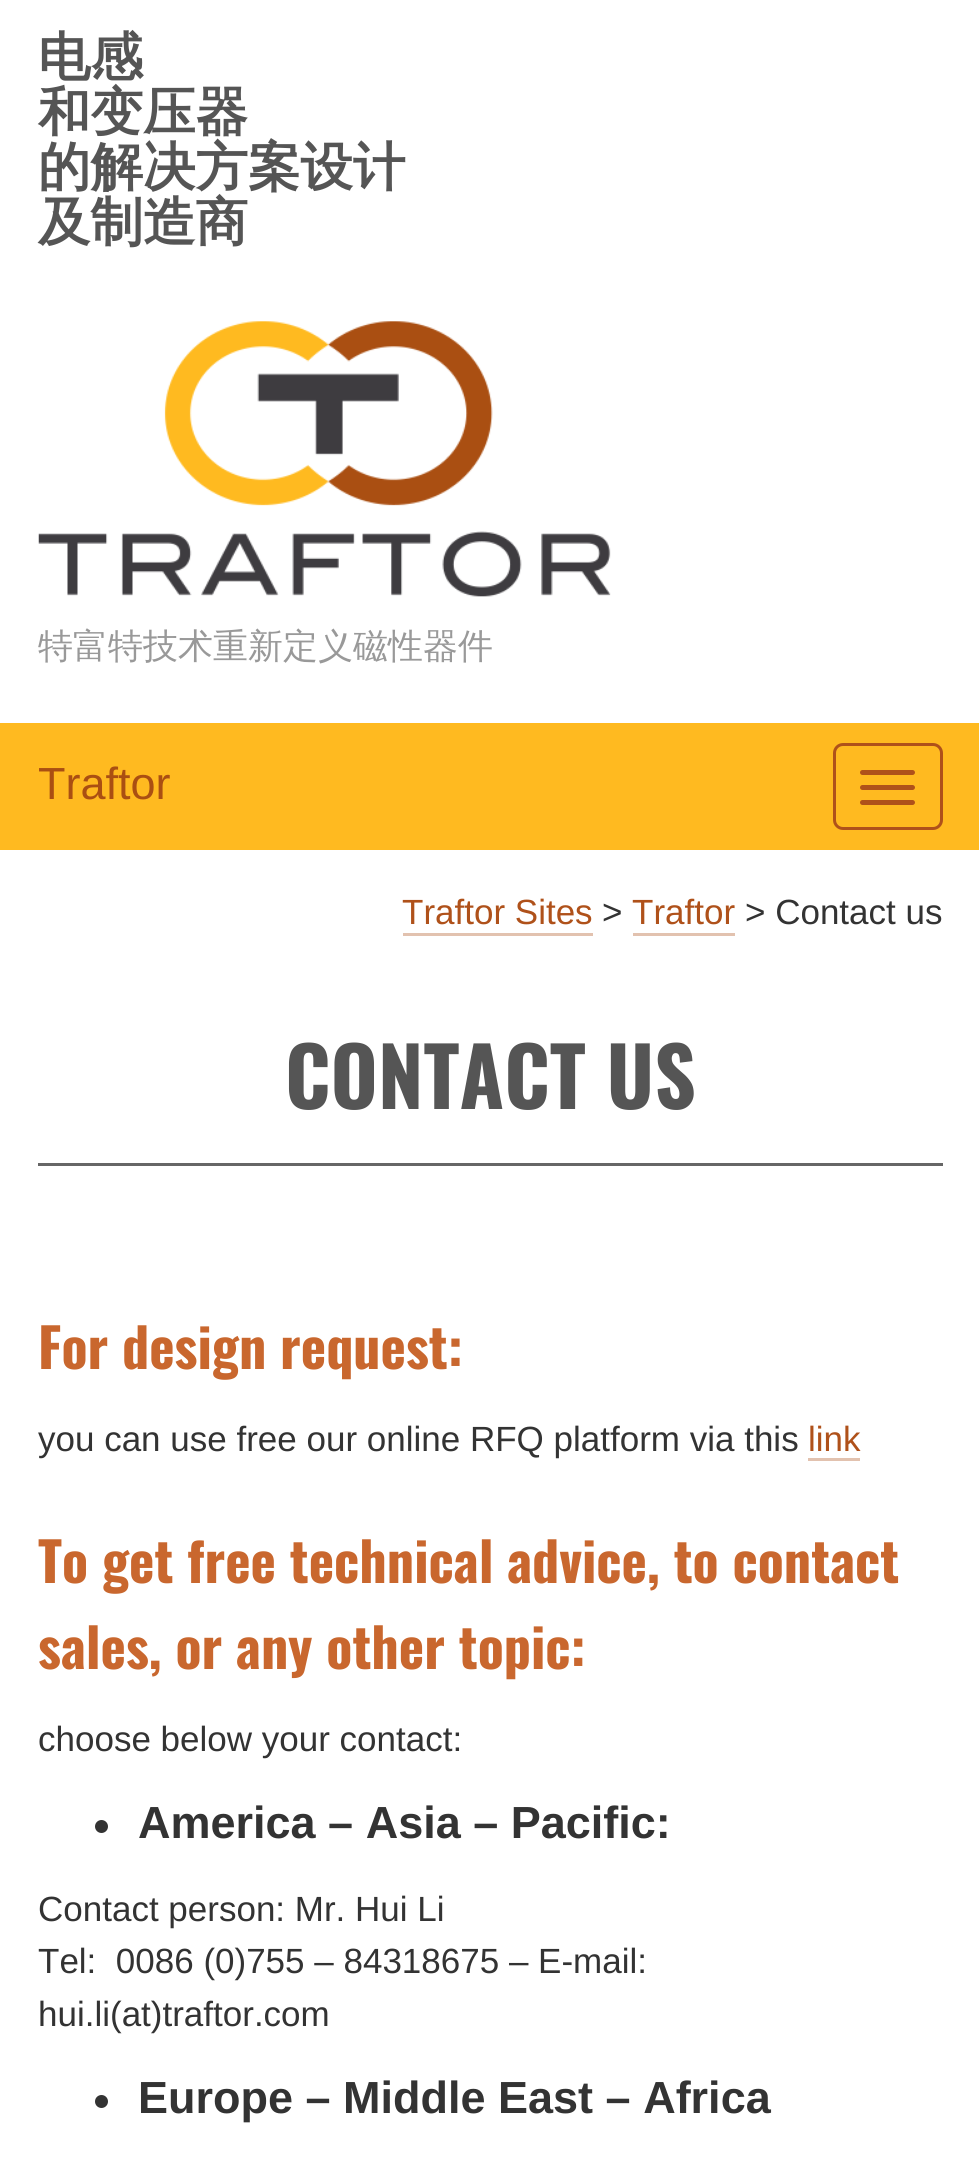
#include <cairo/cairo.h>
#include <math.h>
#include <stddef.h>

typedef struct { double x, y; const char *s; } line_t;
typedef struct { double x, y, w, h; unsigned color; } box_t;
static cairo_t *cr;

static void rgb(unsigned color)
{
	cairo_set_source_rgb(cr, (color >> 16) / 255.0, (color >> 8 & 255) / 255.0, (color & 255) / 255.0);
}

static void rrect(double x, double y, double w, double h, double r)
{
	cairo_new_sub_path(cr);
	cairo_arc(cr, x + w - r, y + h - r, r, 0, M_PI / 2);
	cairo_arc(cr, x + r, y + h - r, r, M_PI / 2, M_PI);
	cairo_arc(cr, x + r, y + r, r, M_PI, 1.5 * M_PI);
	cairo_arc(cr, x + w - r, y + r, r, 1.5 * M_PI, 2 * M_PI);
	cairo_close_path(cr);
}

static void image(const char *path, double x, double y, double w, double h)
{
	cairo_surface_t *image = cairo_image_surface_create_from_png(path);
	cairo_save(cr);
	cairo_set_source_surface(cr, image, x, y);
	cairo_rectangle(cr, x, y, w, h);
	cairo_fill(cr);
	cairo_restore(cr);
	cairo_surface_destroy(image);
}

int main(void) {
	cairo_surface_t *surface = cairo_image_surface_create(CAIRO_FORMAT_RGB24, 979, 2171);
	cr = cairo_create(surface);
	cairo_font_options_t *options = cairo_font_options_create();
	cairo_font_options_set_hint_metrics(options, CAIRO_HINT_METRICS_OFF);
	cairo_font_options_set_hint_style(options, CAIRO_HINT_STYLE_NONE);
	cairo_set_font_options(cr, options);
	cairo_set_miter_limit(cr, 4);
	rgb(0xffffff);
	cairo_paint(cr);
	image("img/1.png", 38, 321, 573, 276);
	rgb(0xffba20);
	cairo_rectangle(cr, 0, 723, 979, 127);
	cairo_fill(cr);
	rrect(834.5, 744.5, 107, 84, 8.5);
	rgb(0xaf511a);
	cairo_set_line_width(cr, 3);
	cairo_stroke(cr);
	rrect(860, 770, 55, 5, 2.5);
	cairo_fill(cr);
	rrect(860, 785, 55, 5, 2.5);
	cairo_fill(cr);
	rrect(860, 800, 55, 5, 2.5);
	cairo_fill(cr);
	{
		static const box_t items[] = {
			{403, 933, 190, 3, 0xe2c2af},
			{633, 933, 102, 3, 0xe2c2af},
			{38, 1163, 905, 3, 0x666666},
			{808, 1458, 52, 3, 0xe2c2af},
		};
		for (size_t i = 0; i < sizeof items / sizeof *items; i++) {
			rgb(items[i].color);
			cairo_rectangle(cr, items[i].x, items[i].y, items[i].w, items[i].h);
			cairo_fill(cr);
		}
	}
	rgb(0x333333);
	cairo_arc(cr, 101.5, 1826.5, 6.5, 0, 2 * M_PI);
	cairo_fill(cr);
	cairo_arc(cr, 101.5, 2101.5, 6.5, 0, 2 * M_PI);
	cairo_fill(cr);
	cairo_select_font_face(cr, "WenQuanYi Zen Hei", CAIRO_FONT_SLANT_NORMAL, CAIRO_FONT_WEIGHT_BOLD);
	cairo_set_font_size(cr, 52.5);
	rgb(0x555555);
	{
		static const line_t items[] = {
			{38, 75, "电感"},
			{38, 130, "和变压器"},
			{38, 185, "的解决方案设计"},
			{38, 240, "及制造商"},
		};
		for (size_t i = 0; i < sizeof items / sizeof *items; i++) {
			cairo_move_to(cr, items[i].x, items[i].y);
			cairo_show_text(cr, items[i].s);
		}
	}
	cairo_select_font_face(cr, "WenQuanYi Zen Hei Medium", CAIRO_FONT_SLANT_NORMAL, CAIRO_FONT_WEIGHT_NORMAL);
	cairo_set_font_size(cr, 35);
	rgb(0x999999);
	cairo_move_to(cr, 38, 658);
	cairo_show_text(cr, "特富特技术重新定义磁性器件");
	cairo_select_font_face(cr, "Liberation Sans", CAIRO_FONT_SLANT_NORMAL, CAIRO_FONT_WEIGHT_NORMAL);
	cairo_set_font_size(cr, 45);
	rgb(0xaa4f12);
	cairo_move_to(cr, 38, 799);
	cairo_show_text(cr, "Traftor");
	cairo_set_font_size(cr, 35);
	rgb(0xaf511a);
	cairo_move_to(cr, 402, 924);
	cairo_show_text(cr, "Traftor Sites");
	rgb(0x333333);
	cairo_move_to(cr, 602, 924);
	cairo_show_text(cr, ">");
	rgb(0xaf511a);
	cairo_move_to(cr, 632, 924);
	cairo_show_text(cr, "Traftor");
	rgb(0x333333);
	cairo_move_to(cr, 745, 924);
	cairo_show_text(cr, "> Contact us");
	cairo_select_font_face(cr, "Oswald", CAIRO_FONT_SLANT_NORMAL, CAIRO_FONT_WEIGHT_BOLD);
	cairo_set_font_size(cr, 81);
	rgb(0x555555);
	cairo_move_to(cr, 285, 1109);
	cairo_show_text(cr, "CONTACT US");
	cairo_set_font_size(cr, 54);
	rgb(0xc9672e);
	cairo_move_to(cr, 38, 1369);
	cairo_show_text(cr, "For design request:");
	cairo_select_font_face(cr, "Liberation Sans", CAIRO_FONT_SLANT_NORMAL, CAIRO_FONT_WEIGHT_NORMAL);
	cairo_set_font_size(cr, 35);
	rgb(0x333333);
	cairo_move_to(cr, 38, 1451);
	cairo_show_text(cr, "you can use free our online RFQ platform via this");
	rgb(0xaf511a);
	cairo_move_to(cr, 808, 1451);
	cairo_show_text(cr, "link");
	cairo_select_font_face(cr, "Oswald", CAIRO_FONT_SLANT_NORMAL, CAIRO_FONT_WEIGHT_BOLD);
	cairo_set_font_size(cr, 54);
	rgb(0xc9672e);
	cairo_move_to(cr, 38, 1583);
	cairo_show_text(cr, "To get free technical advice, to contact");
	cairo_move_to(cr, 38, 1669);
	cairo_show_text(cr, "sales, or any other topic:");
	cairo_select_font_face(cr, "Liberation Sans", CAIRO_FONT_SLANT_NORMAL, CAIRO_FONT_WEIGHT_NORMAL);
	cairo_set_font_size(cr, 35);
	rgb(0x333333);
	cairo_move_to(cr, 38, 1751);
	cairo_show_text(cr, "choose below your contact:");
	cairo_select_font_face(cr, "Liberation Sans", CAIRO_FONT_SLANT_NORMAL, CAIRO_FONT_WEIGHT_BOLD);
	cairo_set_font_size(cr, 45);
	cairo_move_to(cr, 138, 1838);
	cairo_show_text(cr, "America – Asia – Pacific:");
	cairo_select_font_face(cr, "Liberation Sans", CAIRO_FONT_SLANT_NORMAL, CAIRO_FONT_WEIGHT_NORMAL);
	cairo_set_font_size(cr, 35);
	{
		static const line_t items[] = {
			{38, 1921, "Contact person: Mr. Hui Li"},
			{38, 1973, "Tel:  0086 (0)755 – 84318675 – E-mail:"},
			{38, 2026, "hui.li(at)traftor.com"},
		};
		for (size_t i = 0; i < sizeof items / sizeof *items; i++) {
			cairo_move_to(cr, items[i].x, items[i].y);
			cairo_show_text(cr, items[i].s);
		}
	}
	cairo_select_font_face(cr, "Liberation Sans", CAIRO_FONT_SLANT_NORMAL, CAIRO_FONT_WEIGHT_BOLD);
	cairo_set_font_size(cr, 45);
	cairo_move_to(cr, 138, 2113);
	cairo_show_text(cr, "Europe – Middle East – Africa");
	cairo_surface_write_to_png(surface, "page.png");
	cairo_font_options_destroy(options);
	cairo_destroy(cr);
	cairo_surface_destroy(surface);
	return 0;
}
